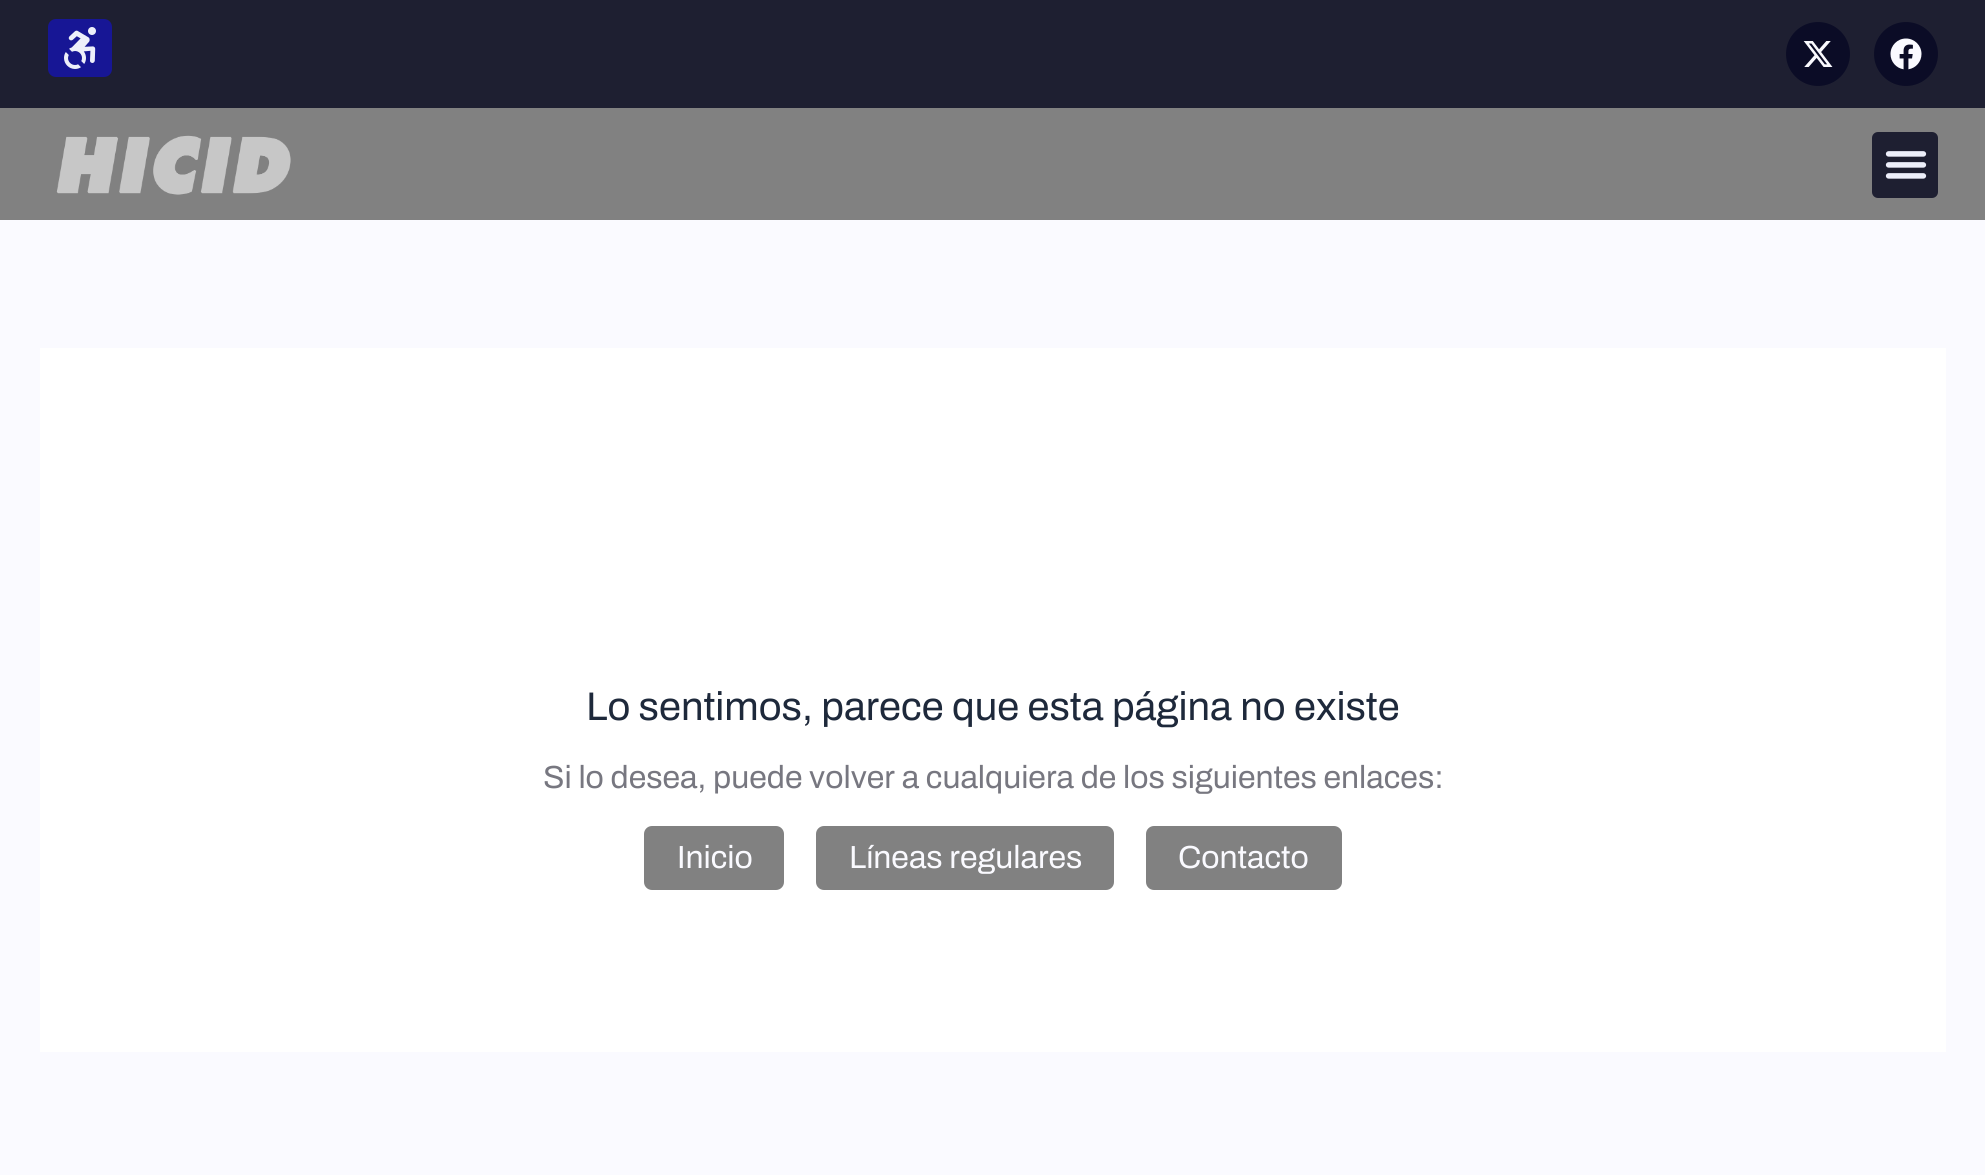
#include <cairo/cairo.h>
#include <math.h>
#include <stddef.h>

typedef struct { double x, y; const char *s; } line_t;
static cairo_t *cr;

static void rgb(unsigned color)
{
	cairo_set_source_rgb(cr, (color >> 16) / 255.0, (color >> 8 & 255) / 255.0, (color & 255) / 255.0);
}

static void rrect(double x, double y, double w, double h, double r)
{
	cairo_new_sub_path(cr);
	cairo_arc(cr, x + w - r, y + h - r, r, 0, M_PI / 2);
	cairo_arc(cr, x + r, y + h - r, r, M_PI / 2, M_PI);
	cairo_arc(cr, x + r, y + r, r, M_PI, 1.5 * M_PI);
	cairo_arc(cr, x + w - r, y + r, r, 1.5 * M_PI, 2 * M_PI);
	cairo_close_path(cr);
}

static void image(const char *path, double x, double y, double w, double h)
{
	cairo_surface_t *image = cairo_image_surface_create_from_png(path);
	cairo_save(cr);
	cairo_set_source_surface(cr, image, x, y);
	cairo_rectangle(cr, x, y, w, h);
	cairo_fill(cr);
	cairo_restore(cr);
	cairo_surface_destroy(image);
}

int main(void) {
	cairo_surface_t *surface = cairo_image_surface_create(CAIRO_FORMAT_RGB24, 1985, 1175);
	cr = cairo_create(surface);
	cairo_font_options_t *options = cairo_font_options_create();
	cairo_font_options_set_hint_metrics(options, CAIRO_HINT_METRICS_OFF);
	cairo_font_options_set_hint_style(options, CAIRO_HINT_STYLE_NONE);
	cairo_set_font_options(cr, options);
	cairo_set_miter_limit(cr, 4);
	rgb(0xfafaff);
	cairo_paint(cr);
	rgb(0x1e1f31);
	cairo_rectangle(cr, 0, 0, 1985, 108);
	cairo_fill(cr);
	image("img/1.png", 48, 19, 64, 58);
	rgb(0x0b0c26);
	cairo_arc(cr, 1818, 54, 32, 0, 2 * M_PI);
	cairo_fill(cr);
	image("img/2.png", 1803, 41, 30, 26);
	cairo_arc(cr, 1906, 54, 32, 0, 2 * M_PI);
	cairo_fill(cr);
	image("img/3.png", 1890, 38, 32, 32);
	rgb(0x818181);
	cairo_rectangle(cr, 0, 108, 1985, 112);
	cairo_fill(cr);
	image("img/4.png", 56, 135, 235, 60);
	rgb(0x1e1f31);
	rrect(1872, 132, 66, 66, 6);
	cairo_fill(cr);
	image("img/5.png", 1885, 151, 42, 28);
	rgb(0xffffff);
	cairo_rectangle(cr, 40, 348, 1906, 704);
	cairo_fill(cr);
	rgb(0x818181);
	rrect(644, 826, 140, 64, 8);
	cairo_fill(cr);
	rrect(816, 826, 298, 64, 8);
	cairo_fill(cr);
	rrect(1146, 826, 196, 64, 8);
	cairo_fill(cr);
	cairo_select_font_face(cr, "Archivo", CAIRO_FONT_SLANT_NORMAL, CAIRO_FONT_WEIGHT_NORMAL);
	cairo_set_font_size(cr, 40);
	rgb(0x1e293b);
	cairo_move_to(cr, 586, 720);
	cairo_show_text(cr, "Lo sentimos, parece que esta página no existe");
	cairo_set_font_size(cr, 32);
	rgb(0x777780);
	cairo_move_to(cr, 543, 788);
	cairo_show_text(cr, "Si lo desea, puede volver a cualquiera de los siguientes enlaces:");
	rgb(0xfafaff);
	{
		static const line_t items[] = {
			{677, 868, "Inicio"},
			{849, 868, "Líneas regulares"},
			{1178, 868, "Contacto"},
		};
		for (size_t i = 0; i < sizeof items / sizeof *items; i++) {
			cairo_move_to(cr, items[i].x, items[i].y);
			cairo_show_text(cr, items[i].s);
		}
	}
	cairo_surface_write_to_png(surface, "page.png");
	cairo_font_options_destroy(options);
	cairo_destroy(cr);
	cairo_surface_destroy(surface);
	return 0;
}
